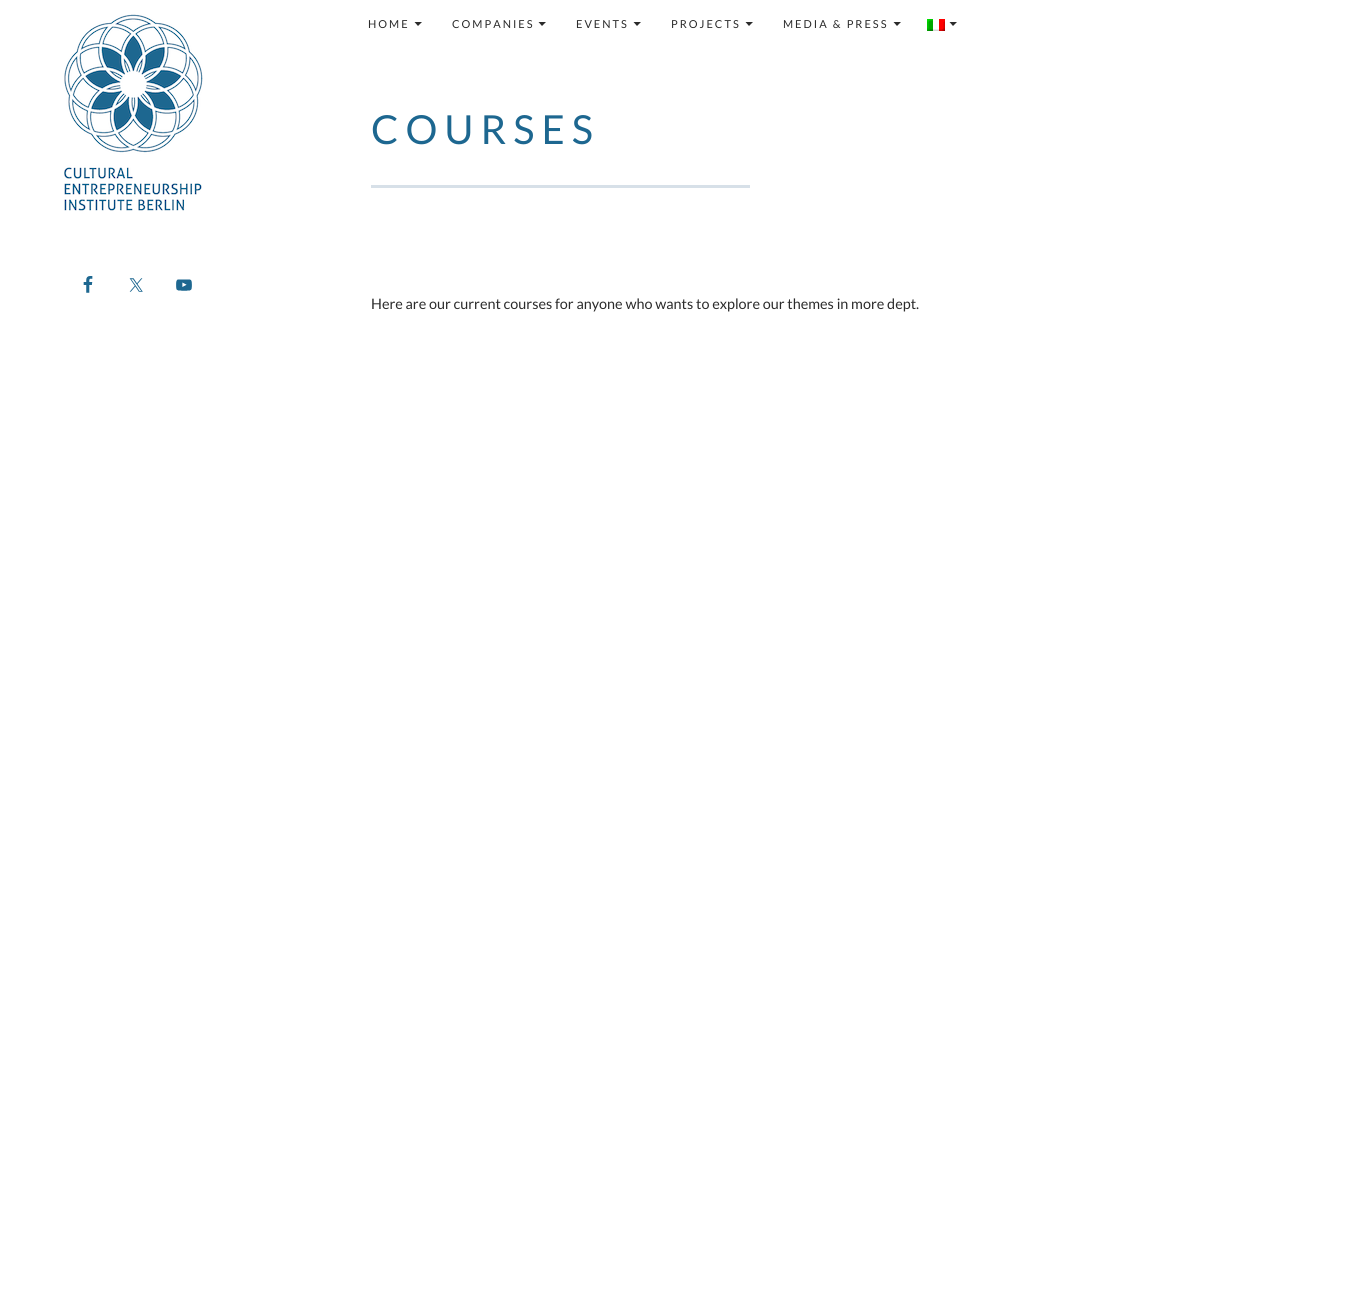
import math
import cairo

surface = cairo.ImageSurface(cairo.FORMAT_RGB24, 1368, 1310)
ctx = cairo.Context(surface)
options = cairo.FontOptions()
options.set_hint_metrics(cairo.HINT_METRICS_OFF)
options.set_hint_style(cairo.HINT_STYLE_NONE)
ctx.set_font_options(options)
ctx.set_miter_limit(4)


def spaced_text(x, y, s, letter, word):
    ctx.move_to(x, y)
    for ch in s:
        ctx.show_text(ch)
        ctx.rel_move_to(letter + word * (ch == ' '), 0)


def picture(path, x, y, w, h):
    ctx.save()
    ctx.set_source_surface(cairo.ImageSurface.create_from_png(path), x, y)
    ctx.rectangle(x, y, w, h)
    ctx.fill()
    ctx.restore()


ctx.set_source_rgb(1, 1, 1)
ctx.paint()
ctx.select_font_face("Lato")
ctx.set_font_size(11)
ctx.set_source_rgb(0.169, 0.169, 0.169)
spaced_text(368, 28, "HOME", 2, 0)
ctx.new_path()
ctx.move_to(414.5, 22)
ctx.line_to(418, 26)
ctx.line_to(422, 22)
ctx.close_path()
ctx.fill()
spaced_text(452, 28, "COMPANIES", 2, 0)
ctx.new_path()
ctx.move_to(538.5, 22)
ctx.line_to(542, 26)
ctx.line_to(546, 22)
ctx.close_path()
ctx.fill()
spaced_text(576, 28, "EVENTS", 2, 0)
ctx.new_path()
ctx.move_to(633.5, 22)
ctx.line_to(637, 26)
ctx.line_to(641, 22)
ctx.close_path()
ctx.fill()
spaced_text(671, 28, "PROJECTS", 2, 0)
ctx.new_path()
ctx.move_to(745.5, 22)
ctx.line_to(749, 26)
ctx.line_to(753, 22)
ctx.close_path()
ctx.fill()
spaced_text(783, 28, "MEDIA & PRESS", 2, 0)
ctx.new_path()
ctx.move_to(893.5, 22)
ctx.line_to(897, 26)
ctx.line_to(901, 22)
ctx.close_path()
ctx.fill()
picture("img1.png", 927, 19, 18, 12)
ctx.new_path()
ctx.move_to(949.5, 22)
ctx.line_to(953, 26)
ctx.line_to(957, 22)
ctx.close_path()
ctx.fill()
picture("img2.png", 64, 14, 139, 197)
picture("img3.png", 83, 276, 10, 17)
picture("img4.png", 129, 278, 14, 14)
picture("img5.png", 176, 279, 16, 12)
ctx.set_font_size(40)
ctx.set_source_rgb(0.114, 0.404, 0.565)
spaced_text(371, 144, "COURSES", 7, 0)
ctx.set_source_rgb(0.843, 0.878, 0.91)
ctx.rectangle(371, 185, 379, 3)
ctx.fill()
ctx.set_font_size(14.4)
ctx.set_source_rgb(0.169, 0.169, 0.169)
ctx.move_to(371, 309)
ctx.show_text("Here are our current courses for anyone who wants to explore our themes in more dept.")
surface.write_to_png("page.png")
